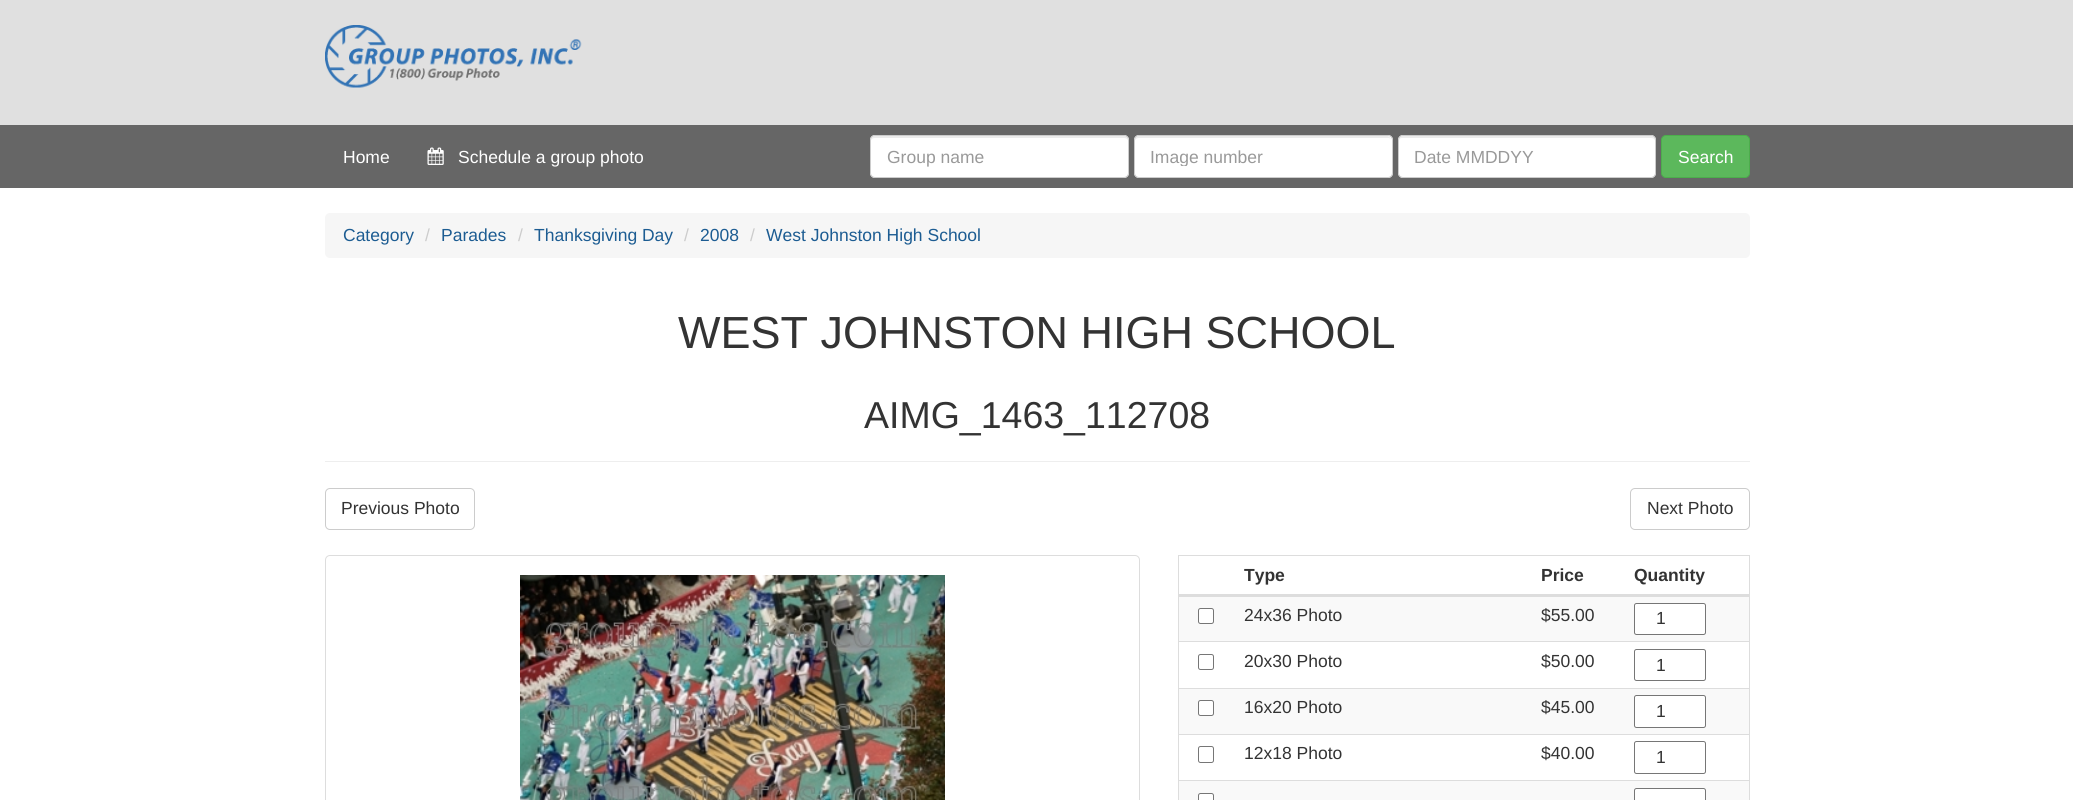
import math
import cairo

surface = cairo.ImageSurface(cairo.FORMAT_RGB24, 2073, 800)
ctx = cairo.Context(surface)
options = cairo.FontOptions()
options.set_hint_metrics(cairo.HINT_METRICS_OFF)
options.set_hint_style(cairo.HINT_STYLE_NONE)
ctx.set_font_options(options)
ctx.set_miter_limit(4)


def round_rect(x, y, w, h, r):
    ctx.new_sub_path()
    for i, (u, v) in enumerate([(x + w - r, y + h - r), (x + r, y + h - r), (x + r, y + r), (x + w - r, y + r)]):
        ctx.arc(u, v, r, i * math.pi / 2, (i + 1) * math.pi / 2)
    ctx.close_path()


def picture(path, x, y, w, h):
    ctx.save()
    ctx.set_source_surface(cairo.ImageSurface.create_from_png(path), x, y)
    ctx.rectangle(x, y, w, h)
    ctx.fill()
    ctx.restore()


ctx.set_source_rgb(1, 1, 1)
ctx.paint()
ctx.set_source_rgb(0.4, 0.4, 0.4)
ctx.rectangle(0, 125, 2073, 63)
ctx.fill()
ctx.set_source_rgb(0.878, 0.878, 0.878)
ctx.rectangle(0, 0, 2073, 125)
ctx.fill()
picture("img1.png", 325, 25, 257, 63)
ctx.select_font_face("Liberation Sans")
ctx.set_font_size(17.5)
ctx.set_source_rgb(1, 1, 1)
ctx.move_to(343, 163)
ctx.show_text("Home")
picture("img2.png", 427, 147, 17, 18)
ctx.move_to(458, 163)
ctx.show_text("Schedule a group photo")
round_rect(870, 135, 259, 43, 5)
ctx.fill()
ctx.set_source_rgb(0.925, 0.925, 0.925)
ctx.new_path()
ctx.move_to(875, 138)
ctx.line_to(1124, 138)
ctx.curve_to(1126, 138, 1128, 139, 1128, 141)
ctx.line_to(1128, 140)
ctx.curve_to(1128, 138, 1126, 136, 1124, 136)
ctx.line_to(875, 136)
ctx.curve_to(873, 136, 871, 138, 871, 140)
ctx.line_to(871, 141)
ctx.curve_to(871, 139, 873, 138, 875, 138)
ctx.close_path()
ctx.fill()
round_rect(870.5, 135.5, 258, 42, 4.5)
ctx.set_source_rgb(0.8, 0.8, 0.8)
ctx.set_line_width(1)
ctx.stroke()
ctx.set_source_rgb(0.6, 0.6, 0.6)
ctx.move_to(887, 163)
ctx.show_text("Group name")
ctx.set_source_rgb(1, 1, 1)
round_rect(1134, 135, 259, 43, 5)
ctx.fill()
ctx.set_source_rgb(0.925, 0.925, 0.925)
ctx.new_path()
ctx.move_to(1139, 138)
ctx.line_to(1389, 138)
ctx.line_to(1391, 139)
ctx.line_to(1391, 141)
ctx.line_to(1391, 140)
ctx.curve_to(1391, 138, 1389, 136, 1387, 136)
ctx.line_to(1139, 136)
ctx.curve_to(1137, 136, 1135, 138, 1135, 140)
ctx.line_to(1135, 141)
ctx.curve_to(1135, 139, 1137, 138, 1139, 138)
ctx.close_path()
ctx.fill()
round_rect(1134.5, 135.5, 258, 42, 4.5)
ctx.set_source_rgb(0.8, 0.8, 0.8)
ctx.stroke()
ctx.save()
ctx.rectangle(1150, 146, 221, 20)
ctx.clip()
ctx.set_source_rgb(0.6, 0.6, 0.6)
ctx.move_to(1150, 163)
ctx.show_text("Image number")
ctx.restore()
ctx.set_source_rgb(1, 1, 1)
round_rect(1398, 135, 258, 43, 5)
ctx.fill()
ctx.set_source_rgb(0.925, 0.925, 0.925)
ctx.new_path()
ctx.move_to(1402, 138)
ctx.line_to(1651, 138)
ctx.curve_to(1653, 138, 1655, 139, 1655, 141)
ctx.line_to(1655, 140)
ctx.curve_to(1655, 138, 1653, 136, 1651, 136)
ctx.line_to(1403, 136)
ctx.curve_to(1401, 136, 1399, 138, 1399, 140)
ctx.line_to(1399, 141)
ctx.curve_to(1399, 139, 1400, 138, 1402, 138)
ctx.close_path()
ctx.fill()
round_rect(1398.5, 135.5, 257, 42, 4.5)
ctx.set_source_rgb(0.8, 0.8, 0.8)
ctx.stroke()
ctx.set_source_rgb(0.6, 0.6, 0.6)
ctx.move_to(1414, 163)
ctx.show_text("Date MMDDYY")
ctx.set_source_rgb(0.361, 0.722, 0.361)
round_rect(1661.5, 135.5, 88, 42, 4.5)
ctx.fill_preserve()
ctx.set_source_rgb(0.298, 0.682, 0.298)
ctx.stroke()
ctx.set_source_rgb(1, 1, 1)
ctx.move_to(1678, 163)
ctx.show_text("Search")
ctx.set_source_rgb(0.961, 0.961, 0.961)
round_rect(325, 213, 1425, 45, 5)
ctx.fill()
ctx.set_source_rgb(0.11, 0.361, 0.573)
ctx.move_to(343, 241)
ctx.show_text("Category")
ctx.set_source_rgb(0.8, 0.8, 0.8)
ctx.move_to(425, 241)
ctx.show_text("/")
ctx.set_source_rgb(0.11, 0.361, 0.573)
ctx.move_to(441, 241)
ctx.show_text("Parades")
ctx.set_source_rgb(0.8, 0.8, 0.8)
ctx.move_to(518, 241)
ctx.show_text("/")
ctx.set_source_rgb(0.11, 0.361, 0.573)
ctx.move_to(534, 241)
ctx.show_text("Thanksgiving Day")
ctx.set_source_rgb(0.8, 0.8, 0.8)
ctx.move_to(684, 241)
ctx.show_text("/")
ctx.set_source_rgb(0.11, 0.361, 0.573)
ctx.move_to(700, 241)
ctx.show_text("2008")
ctx.set_source_rgb(0.8, 0.8, 0.8)
ctx.move_to(750, 241)
ctx.show_text("/")
ctx.set_source_rgb(0.11, 0.361, 0.573)
ctx.move_to(766, 241)
ctx.show_text("West Johnston High School")
ctx.set_font_size(45)
ctx.set_source_rgb(0.2, 0.2, 0.2)
ctx.move_to(678, 348)
ctx.show_text("WEST JOHNSTON HIGH SCHOOL")
ctx.set_font_size(37.5)
ctx.move_to(864, 428)
ctx.show_text("AIMG_1463_112708")
ctx.set_source_rgb(0.933, 0.933, 0.933)
ctx.rectangle(325, 461, 1425, 1)
ctx.fill()
round_rect(325.5, 488.5, 149, 41, 4.5)
ctx.set_source_rgb(0.8, 0.8, 0.8)
ctx.stroke()
ctx.set_font_size(17.5)
ctx.set_source_rgb(0.2, 0.2, 0.2)
ctx.move_to(341, 514)
ctx.show_text("Previous Photo")
round_rect(1630.5, 488.5, 119, 41, 4.5)
ctx.set_source_rgb(0.8, 0.8, 0.8)
ctx.stroke()
ctx.set_source_rgb(0.2, 0.2, 0.2)
ctx.move_to(1647, 514)
ctx.show_text("Next Photo")
round_rect(325.5, 555.5, 814, 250, 4.5)
ctx.set_source_rgb(0.867, 0.867, 0.867)
ctx.stroke()
picture("img3.png", 520, 575, 425, 225)
ctx.rectangle(1178, 555, 572, 1)
ctx.fill()
ctx.rectangle(1749, 555, 1, 245)
ctx.fill()
ctx.rectangle(1178, 555, 1, 245)
ctx.fill()
ctx.select_font_face("Liberation Sans", cairo.FONT_SLANT_NORMAL, cairo.FONT_WEIGHT_BOLD)
ctx.set_source_rgb(0.2, 0.2, 0.2)
ctx.move_to(1244, 581)
ctx.show_text("Type")
ctx.move_to(1541, 581)
ctx.show_text("Price")
ctx.set_source_rgb(0.867, 0.867, 0.867)
ctx.rectangle(1178, 594, 572, 3)
ctx.fill()
ctx.set_source_rgb(0.2, 0.2, 0.2)
ctx.move_to(1634, 581)
ctx.show_text("Quantity")
ctx.set_source_rgb(0.976, 0.976, 0.976)
ctx.rectangle(1179, 597, 570, 44)
ctx.fill()
ctx.set_source_rgb(1, 1, 1)
round_rect(1198.5, 608.5, 15, 15, 2)
ctx.fill_preserve()
ctx.set_source_rgb(0.463, 0.463, 0.463)
ctx.stroke()
ctx.select_font_face("Liberation Sans")
ctx.set_source_rgb(0.2, 0.2, 0.2)
ctx.move_to(1244, 621)
ctx.show_text("24x36 Photo")
ctx.move_to(1541, 621)
ctx.show_text("$55.00")
ctx.set_source_rgb(1, 1, 1)
round_rect(1634.5, 603.5, 71, 31, 2)
ctx.fill_preserve()
ctx.set_source_rgb(0.463, 0.463, 0.463)
ctx.stroke()
ctx.set_source_rgb(0.2, 0.2, 0.2)
ctx.move_to(1656, 624)
ctx.show_text("1")
round_rect(1198.5, 654.5, 15, 15, 2)
ctx.set_source_rgb(0.463, 0.463, 0.463)
ctx.stroke()
ctx.set_source_rgb(0.2, 0.2, 0.2)
ctx.move_to(1244, 667)
ctx.show_text("20x30 Photo")
ctx.move_to(1541, 667)
ctx.show_text("$50.00")
ctx.set_source_rgb(0.867, 0.867, 0.867)
ctx.rectangle(1178, 641, 572, 1)
ctx.fill()
round_rect(1634.5, 649.5, 71, 31, 2)
ctx.set_source_rgb(0.463, 0.463, 0.463)
ctx.stroke()
ctx.set_source_rgb(0.2, 0.2, 0.2)
ctx.move_to(1656, 671)
ctx.show_text("1")
ctx.set_source_rgb(0.976, 0.976, 0.976)
ctx.rectangle(1179, 689, 570, 45)
ctx.fill()
ctx.set_source_rgb(1, 1, 1)
round_rect(1198.5, 700.5, 15, 15, 2)
ctx.fill_preserve()
ctx.set_source_rgb(0.463, 0.463, 0.463)
ctx.stroke()
ctx.set_source_rgb(0.2, 0.2, 0.2)
ctx.move_to(1244, 713)
ctx.show_text("16x20 Photo")
ctx.move_to(1541, 713)
ctx.show_text("$45.00")
ctx.set_source_rgb(0.867, 0.867, 0.867)
ctx.rectangle(1178, 688, 572, 1)
ctx.fill()
ctx.set_source_rgb(1, 1, 1)
round_rect(1634.5, 695.5, 71, 32, 2)
ctx.fill_preserve()
ctx.set_source_rgb(0.463, 0.463, 0.463)
ctx.stroke()
ctx.set_source_rgb(0.2, 0.2, 0.2)
ctx.move_to(1656, 717)
ctx.show_text("1")
round_rect(1198.5, 746.5, 15, 16, 2)
ctx.set_source_rgb(0.463, 0.463, 0.463)
ctx.stroke()
ctx.set_source_rgb(0.2, 0.2, 0.2)
ctx.move_to(1244, 759)
ctx.show_text("12x18 Photo")
ctx.move_to(1541, 759)
ctx.show_text("$40.00")
ctx.set_source_rgb(0.867, 0.867, 0.867)
ctx.rectangle(1178, 734, 572, 1)
ctx.fill()
round_rect(1634.5, 741.5, 71, 32, 2)
ctx.set_source_rgb(0.463, 0.463, 0.463)
ctx.stroke()
ctx.set_source_rgb(0.2, 0.2, 0.2)
ctx.move_to(1656, 763)
ctx.show_text("1")
ctx.set_source_rgb(0.976, 0.976, 0.976)
ctx.rectangle(1179, 781, 570, 19)
ctx.fill()
ctx.set_source_rgb(0.867, 0.867, 0.867)
ctx.rectangle(1178, 780, 572, 1)
ctx.fill()
ctx.set_source_rgb(1, 1, 1)
round_rect(1634.5, 788.5, 71, 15, 2)
ctx.fill_preserve()
ctx.set_source_rgb(0.463, 0.463, 0.463)
ctx.stroke()
ctx.set_source_rgb(1, 1, 1)
round_rect(1198.5, 793.5, 15, 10, 2)
ctx.fill_preserve()
ctx.set_source_rgb(0.463, 0.463, 0.463)
ctx.stroke()
surface.write_to_png("page.png")
